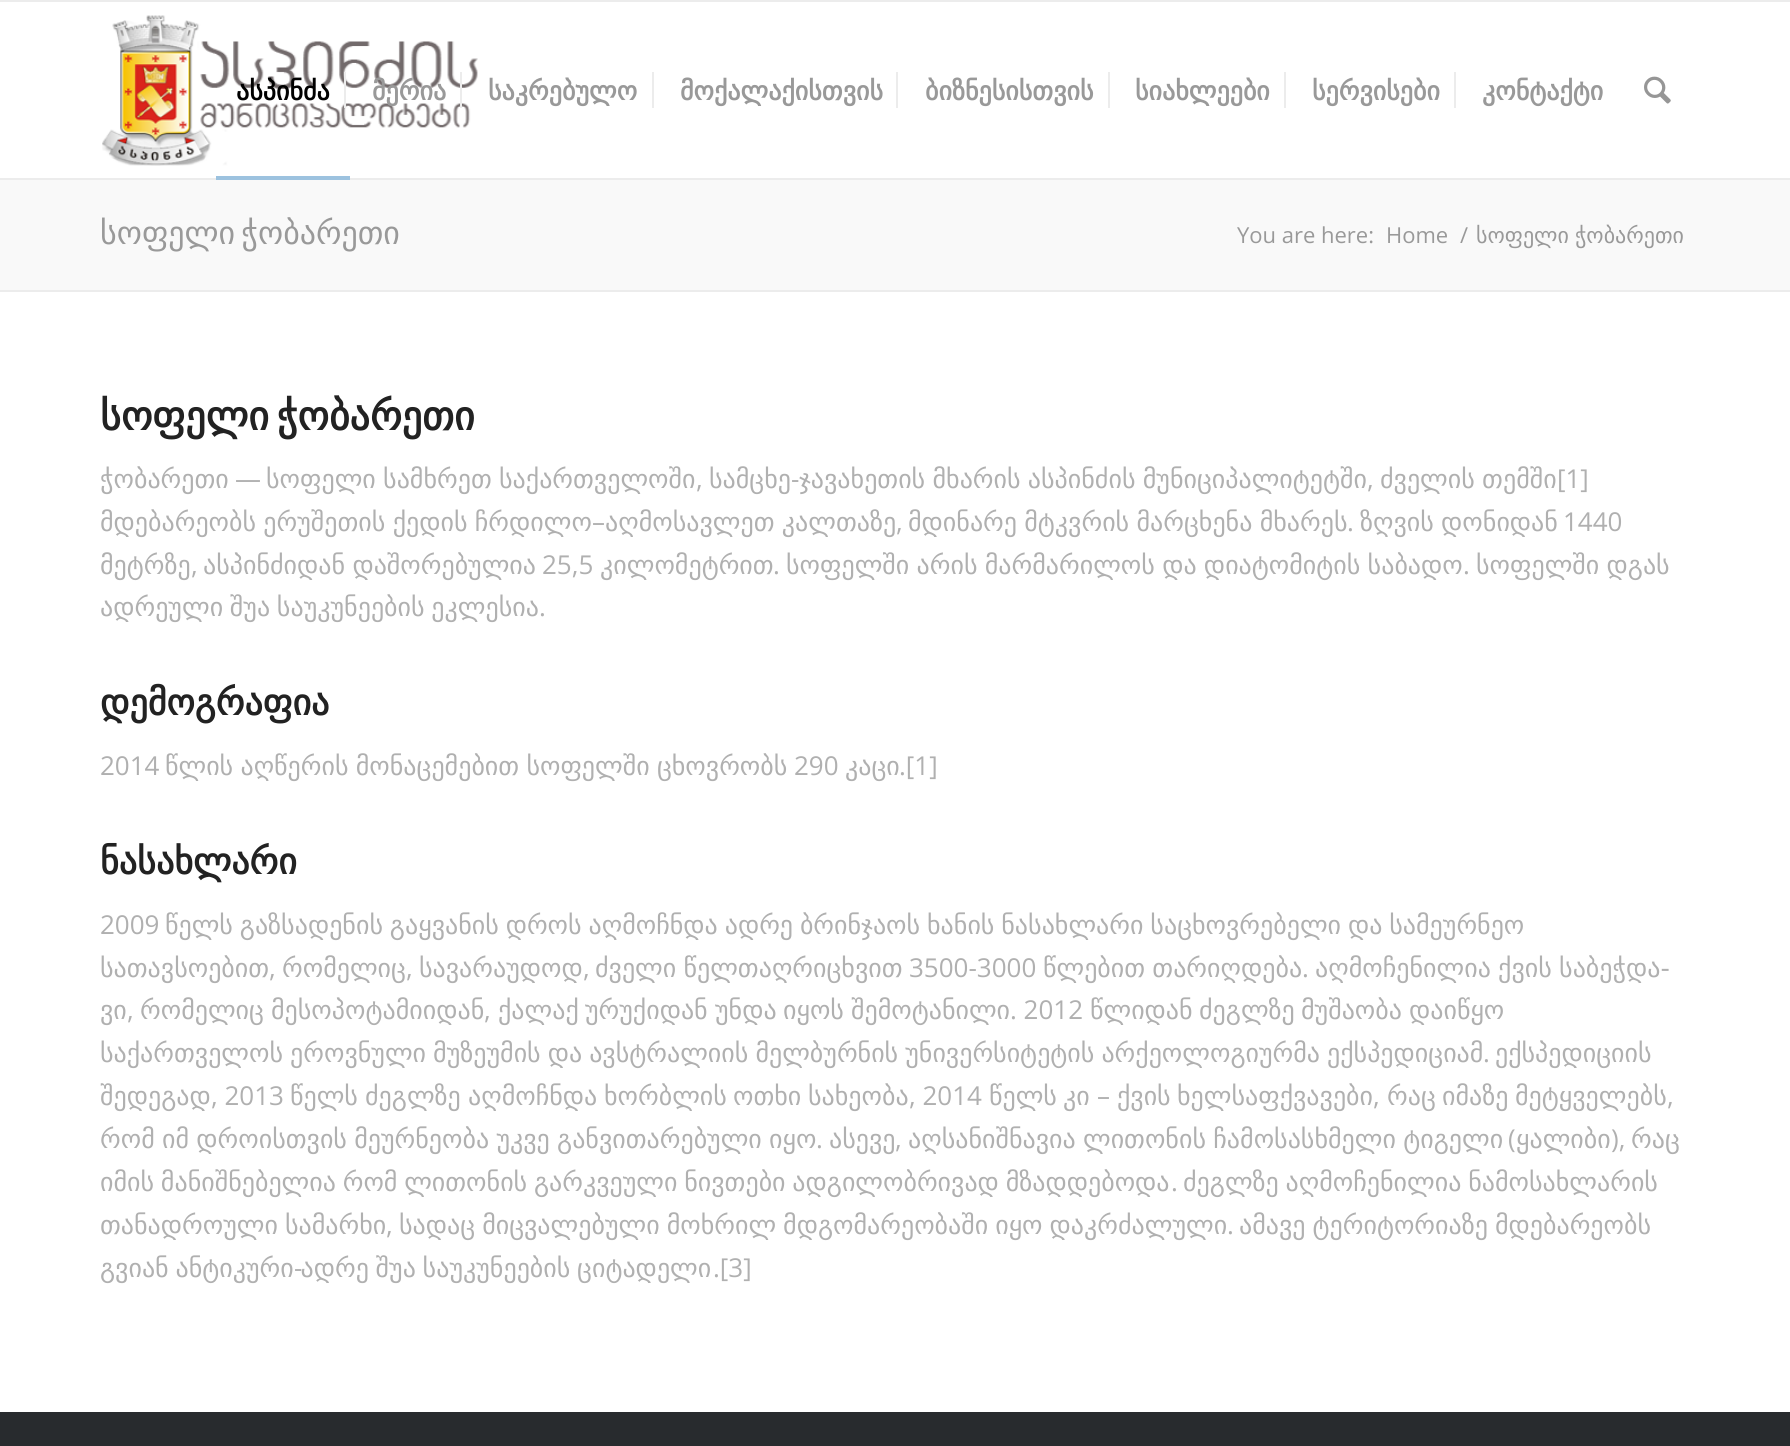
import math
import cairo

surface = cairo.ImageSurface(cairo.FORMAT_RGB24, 1790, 1446)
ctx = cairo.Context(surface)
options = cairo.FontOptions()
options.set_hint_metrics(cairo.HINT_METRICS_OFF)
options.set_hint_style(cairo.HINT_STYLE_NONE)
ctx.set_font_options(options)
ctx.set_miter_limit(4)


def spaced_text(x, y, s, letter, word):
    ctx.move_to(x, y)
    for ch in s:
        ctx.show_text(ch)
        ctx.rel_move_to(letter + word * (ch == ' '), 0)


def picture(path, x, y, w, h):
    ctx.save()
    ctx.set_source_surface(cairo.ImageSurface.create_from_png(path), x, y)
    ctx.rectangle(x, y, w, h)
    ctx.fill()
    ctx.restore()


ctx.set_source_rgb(0.157, 0.169, 0.18)
ctx.paint()
ctx.set_source_rgb(1, 1, 1)
ctx.rectangle(0, 2, 1790, 176)
ctx.fill()
ctx.set_source_rgb(0.922, 0.922, 0.922)
ctx.rectangle(0, 0, 1790, 2)
ctx.fill()
ctx.rectangle(0, 178, 1790, 2)
ctx.fill()
picture("img1.png", 102, 15, 376, 151)
ctx.select_font_face("DejaVu Sans", cairo.FONT_SLANT_NORMAL, cairo.FONT_WEIGHT_BOLD)
ctx.set_font_size(26)
ctx.set_source_rgb(0, 0, 0)
ctx.move_to(236, 100)
ctx.show_text("ასპინძა")
ctx.set_source_rgb(0.612, 0.761, 0.875)
ctx.rectangle(216, 176, 134, 4)
ctx.fill()
ctx.set_source_rgb(0.6, 0.6, 0.6)
ctx.move_to(372, 100)
ctx.show_text("მერია")
ctx.set_source_rgb(0.922, 0.922, 0.922)
ctx.rectangle(344, 72, 2, 36)
ctx.fill()
ctx.set_source_rgb(0.6, 0.6, 0.6)
ctx.move_to(488, 100)
ctx.show_text("საკრებულო")
ctx.set_source_rgb(0.922, 0.922, 0.922)
ctx.rectangle(460, 72, 2, 36)
ctx.fill()
ctx.set_source_rgb(0.6, 0.6, 0.6)
ctx.move_to(680, 100)
ctx.show_text("მოქალაქისთვის")
ctx.set_source_rgb(0.922, 0.922, 0.922)
ctx.rectangle(652, 72, 2, 36)
ctx.fill()
ctx.set_source_rgb(0.6, 0.6, 0.6)
ctx.move_to(925, 100)
ctx.show_text("ბიზნესისთვის")
ctx.set_source_rgb(0.922, 0.922, 0.922)
ctx.rectangle(896, 72, 2, 36)
ctx.fill()
ctx.set_source_rgb(0.6, 0.6, 0.6)
ctx.move_to(1135, 100)
ctx.show_text("სიახლეები")
ctx.set_source_rgb(0.922, 0.922, 0.922)
ctx.rectangle(1108, 72, 2, 36)
ctx.fill()
ctx.set_source_rgb(0.6, 0.6, 0.6)
ctx.move_to(1312, 100)
ctx.show_text("სერვისები")
ctx.set_source_rgb(0.922, 0.922, 0.922)
ctx.rectangle(1284, 72, 2, 36)
ctx.fill()
ctx.set_source_rgb(0.6, 0.6, 0.6)
ctx.move_to(1482, 100)
ctx.show_text("კონტაქტი")
ctx.set_source_rgb(0.922, 0.922, 0.922)
ctx.rectangle(1454, 72, 2, 36)
ctx.fill()
picture("img2.png", 1644, 76, 27, 28)
ctx.set_source_rgb(1, 1, 1)
ctx.rectangle(0, 292, 1790, 1120)
ctx.fill()
ctx.set_source_rgb(0.973, 0.973, 0.973)
ctx.rectangle(0, 180, 1790, 110)
ctx.fill()
ctx.select_font_face("DejaVu Sans")
ctx.set_font_size(32)
ctx.set_source_rgb(0.6, 0.6, 0.6)
spaced_text(100, 244, "სოფელი ჭობარეთი", 0, -4)
ctx.select_font_face("Open Sans")
ctx.set_font_size(22)
ctx.move_to(1237, 243)
ctx.show_text("You are here:")
ctx.move_to(1386, 243)
ctx.show_text("Home")
ctx.move_to(1460, 243)
ctx.show_text("/")
ctx.select_font_face("DejaVu Sans")
spaced_text(1476, 243, "სოფელი ჭობარეთი", 0, -1)
ctx.set_source_rgb(0.922, 0.922, 0.922)
ctx.rectangle(0, 290, 1790, 2)
ctx.fill()
ctx.select_font_face("DejaVu Sans", cairo.FONT_SLANT_NORMAL, cairo.FONT_WEIGHT_BOLD)
ctx.set_font_size(40)
ctx.set_source_rgb(0.133, 0.133, 0.133)
spaced_text(100, 430, "სოფელი ჭობარეთი", 0, -5)
ctx.select_font_face("DejaVu Sans")
ctx.set_font_size(26)
ctx.set_source_rgb(0.69, 0.69, 0.69)
ctx.move_to(100, 488)
ctx.show_text("ჭობარეთი")
ctx.select_font_face("Open Sans")
ctx.move_to(235, 488)
ctx.show_text("—")
ctx.select_font_face("DejaVu Sans")
spaced_text(266, 488, "სოფელი სამხრეთ საქართველოში", 0, -1)
ctx.move_to(709, 488)
ctx.show_text("სამცხე")
ctx.select_font_face("Open Sans")
ctx.move_to(791, 488)
ctx.show_text("-")
ctx.select_font_face("DejaVu Sans")
spaced_text(799, 488, "ჯავახეთის მხარის ასპინძის მუნიციპალიტეტში", 0, -1)
spaced_text(1380, 488, "ძველის თემში", 0, -1)
ctx.select_font_face("Open Sans")
ctx.move_to(1557, 488)
ctx.show_text("[1]")
ctx.move_to(696, 488)
ctx.show_text(",")
ctx.move_to(1367, 488)
ctx.show_text(",")
ctx.select_font_face("DejaVu Sans")
spaced_text(100, 531, "მდებარეობს ერუშეთის ქედის ჩრდილო", 0, -1)
ctx.select_font_face("Open Sans")
ctx.move_to(592, 531)
ctx.show_text("–")
ctx.select_font_face("DejaVu Sans")
spaced_text(605, 531, "აღმოსავლეთ კალთაზე", 0, -1)
spaced_text(908, 531, "მდინარე მტკვრის მარცხენა მხარეს", 0, -1)
spaced_text(1360, 531, "ზღვის დონიდან", 0, -1)
ctx.select_font_face("Open Sans")
ctx.move_to(1563, 531)
ctx.show_text("1440")
ctx.move_to(896, 531)
ctx.show_text(",")
ctx.move_to(1347, 531)
ctx.show_text(".")
ctx.select_font_face("DejaVu Sans")
ctx.move_to(100, 574)
ctx.show_text("მეტრზე")
ctx.select_font_face("Open Sans")
ctx.move_to(191, 574)
ctx.show_text(",")
ctx.select_font_face("DejaVu Sans")
spaced_text(203, 574, "ასპინძიდან დაშორებულია", 0, -1)
ctx.select_font_face("Open Sans")
ctx.move_to(542, 574)
ctx.show_text("25,5")
ctx.select_font_face("DejaVu Sans")
ctx.move_to(600, 574)
ctx.show_text("კილომეტრით")
ctx.select_font_face("Open Sans")
ctx.move_to(773, 574)
ctx.show_text(".")
ctx.select_font_face("DejaVu Sans")
spaced_text(786, 574, "სოფელში არის მარმარილოს და დიატომიტის საბადო", 0, -1)
ctx.select_font_face("Open Sans")
ctx.move_to(1463, 574)
ctx.show_text(".")
ctx.select_font_face("DejaVu Sans")
spaced_text(1476, 574, "სოფელში დგას", 0, -1)
spaced_text(100, 616, "ადრეული შუა საუკუნეების ეკლესია", 0, -1.5)
ctx.select_font_face("Open Sans")
ctx.move_to(539, 616)
ctx.show_text(".")
ctx.select_font_face("DejaVu Sans", cairo.FONT_SLANT_NORMAL, cairo.FONT_WEIGHT_BOLD)
ctx.set_font_size(36)
ctx.set_source_rgb(0.133, 0.133, 0.133)
ctx.move_to(100, 715)
ctx.show_text("დემოგრაფია")
ctx.select_font_face("Open Sans")
ctx.set_font_size(26)
ctx.set_source_rgb(0.69, 0.69, 0.69)
ctx.move_to(100, 775)
ctx.show_text("2014")
ctx.select_font_face("DejaVu Sans")
spaced_text(165, 775, "წლის აღწერის მონაცემებით სოფელში ცხოვრობს", 0, -1)
ctx.select_font_face("Open Sans")
ctx.move_to(794, 775)
ctx.show_text("290")
ctx.select_font_face("DejaVu Sans")
ctx.move_to(845, 775)
ctx.show_text("კაცი")
ctx.select_font_face("Open Sans")
ctx.move_to(899, 775)
ctx.show_text(".[1]")
ctx.select_font_face("DejaVu Sans", cairo.FONT_SLANT_NORMAL, cairo.FONT_WEIGHT_BOLD)
ctx.set_font_size(36)
ctx.set_source_rgb(0.133, 0.133, 0.133)
ctx.move_to(100, 874)
ctx.show_text("ნასახლარი")
ctx.select_font_face("Open Sans")
ctx.set_font_size(26)
ctx.set_source_rgb(0.69, 0.69, 0.69)
ctx.move_to(100, 934)
ctx.show_text("2009")
ctx.select_font_face("DejaVu Sans")
spaced_text(165, 934, "წელს გაზსადენის გაყვანის დროს აღმოჩნდა ადრე ბრინჯაოს ხანის ნასახლარი საცხოვრებელი და სამეურნეო", 0, -1.4)
ctx.move_to(100, 977)
ctx.show_text("სათავსოებით")
ctx.select_font_face("Open Sans")
ctx.move_to(269, 977)
ctx.show_text(",")
ctx.select_font_face("DejaVu Sans")
ctx.move_to(282, 977)
ctx.show_text("რომელიც")
ctx.select_font_face("Open Sans")
ctx.move_to(406, 977)
ctx.show_text(",")
ctx.select_font_face("DejaVu Sans")
ctx.move_to(419, 977)
ctx.show_text("სავარაუდოდ")
ctx.select_font_face("Open Sans")
ctx.move_to(583, 977)
ctx.show_text(",")
ctx.select_font_face("DejaVu Sans")
spaced_text(595, 977, "ძველი წელთაღრიცხვით", 0, -1)
ctx.select_font_face("Open Sans")
ctx.move_to(909, 977)
ctx.show_text("3500-3000")
ctx.select_font_face("DejaVu Sans")
spaced_text(1043, 977, "წლებით თარიღდება", 0, -1)
ctx.select_font_face("Open Sans")
ctx.move_to(1302, 977)
ctx.show_text(".")
ctx.select_font_face("DejaVu Sans")
spaced_text(1315, 977, "აღმოჩენილია ქვის საბეჭდა-", 0, -1)
ctx.move_to(100, 1019)
ctx.show_text("ვი")
ctx.select_font_face("Open Sans")
ctx.move_to(127, 1019)
ctx.show_text(",")
ctx.select_font_face("DejaVu Sans")
ctx.move_to(140, 1019)
ctx.show_text("რომელიც")
ctx.move_to(271, 1019)
ctx.show_text("მესოპოტამიიდან")
ctx.select_font_face("Open Sans")
ctx.move_to(484, 1019)
ctx.show_text(",")
ctx.select_font_face("DejaVu Sans")
ctx.move_to(498, 1019)
ctx.show_text("ქალაქ")
ctx.move_to(585, 1019)
ctx.show_text("ურუქიდან")
ctx.move_to(715, 1019)
ctx.show_text("უნდა")
ctx.move_to(783, 1019)
ctx.show_text("იყოს")
ctx.move_to(851, 1019)
ctx.show_text("შემოტანილი")
ctx.select_font_face("Open Sans")
ctx.move_to(1010, 1019)
ctx.show_text(". 2012")
ctx.select_font_face("DejaVu Sans")
ctx.move_to(1090, 1019)
ctx.show_text("წლიდან")
ctx.move_to(1199, 1019)
ctx.show_text("ძეგლზე")
ctx.move_to(1301, 1019)
ctx.show_text("მუშაობა")
ctx.move_to(1409, 1019)
ctx.show_text("დაიწყო")
spaced_text(100, 1062, "საქართველოს ეროვნული მუზეუმის და ავსტრალიის მელბურნის უნივერსიტეტის არქეოლოგიურმა ექსპედიციამ", 0, -1.25)
ctx.select_font_face("Open Sans")
ctx.move_to(1483, 1062)
ctx.show_text(".")
ctx.select_font_face("DejaVu Sans")
ctx.move_to(1495, 1062)
ctx.show_text("ექსპედიციის")
ctx.move_to(100, 1105)
ctx.show_text("შედეგად")
ctx.select_font_face("Open Sans")
ctx.move_to(211, 1105)
ctx.show_text(", 2013")
ctx.select_font_face("DejaVu Sans")
ctx.move_to(290, 1105)
ctx.show_text("წელს")
ctx.move_to(365, 1105)
ctx.show_text("ძეგლზე")
ctx.move_to(468, 1105)
ctx.show_text("აღმოჩნდა")
ctx.move_to(604, 1105)
ctx.show_text("ხორბლის")
ctx.move_to(733, 1105)
ctx.show_text("ოთხი")
ctx.move_to(808, 1105)
ctx.show_text("სახეობა")
ctx.select_font_face("Open Sans")
ctx.move_to(909, 1105)
ctx.show_text(", 2014")
ctx.select_font_face("DejaVu Sans")
ctx.move_to(989, 1105)
ctx.show_text("წელს")
ctx.move_to(1063, 1105)
ctx.show_text("კი")
ctx.select_font_face("Open Sans")
ctx.move_to(1097, 1105)
ctx.show_text("–")
ctx.select_font_face("DejaVu Sans")
ctx.move_to(1117, 1105)
ctx.show_text("ქვის")
ctx.move_to(1177, 1105)
ctx.show_text("ხელსაფქვავები")
ctx.move_to(1387, 1105)
ctx.show_text("რაც")
ctx.move_to(1442, 1105)
ctx.show_text("იმაზე")
ctx.move_to(1515, 1105)
ctx.show_text("მეტყველებს")
ctx.select_font_face("Open Sans")
ctx.move_to(1373, 1105)
ctx.show_text(",")
ctx.move_to(1667, 1105)
ctx.show_text(",")
ctx.select_font_face("DejaVu Sans")
spaced_text(100, 1148, "რომ იმ დროისთვის მეურნეობა უკვე განვითარებული იყო", 0, -1)
ctx.select_font_face("Open Sans")
ctx.move_to(816, 1148)
ctx.show_text(".")
ctx.select_font_face("DejaVu Sans")
ctx.move_to(829, 1148)
ctx.show_text("ასევე")
ctx.select_font_face("Open Sans")
ctx.move_to(895, 1148)
ctx.show_text(",")
ctx.select_font_face("DejaVu Sans")
spaced_text(908, 1148, "აღსანიშნავია ლითონის ჩამოსასხმელი ტიგელი", 0, -1)
ctx.select_font_face("Open Sans")
ctx.move_to(1508, 1148)
ctx.show_text("(")
ctx.select_font_face("DejaVu Sans")
ctx.move_to(1516, 1148)
ctx.show_text("ყალიბი")
ctx.select_font_face("Open Sans")
ctx.move_to(1611, 1148)
ctx.show_text("),")
ctx.select_font_face("DejaVu Sans")
ctx.move_to(1631, 1148)
ctx.show_text("რაც")
spaced_text(100, 1191, "იმის მანიშნებელია რომ ლითონის გარკვეული ნივთები ადგილობრივად მზადდებოდა", 0, -1.5)
ctx.select_font_face("Open Sans")
ctx.move_to(1171, 1191)
ctx.show_text(".")
ctx.select_font_face("DejaVu Sans")
spaced_text(1183, 1191, "ძეგლზე აღმოჩენილია ნამოსახლარის", 0, -1.5)
spaced_text(100, 1234, "თანადროული სამარხი", 0, -1.25)
ctx.select_font_face("Open Sans")
ctx.move_to(386, 1234)
ctx.show_text(",")
ctx.select_font_face("DejaVu Sans")
spaced_text(399, 1234, "სადაც მიცვალებული მოხრილ მდგომარეობაში იყო დაკრძალული", 0, -1.25)
ctx.select_font_face("Open Sans")
ctx.move_to(1227, 1234)
ctx.show_text(".")
ctx.select_font_face("DejaVu Sans")
spaced_text(1239, 1234, "ამავე ტერიტორიაზე მდებარეობს", 0, -1.25)
spaced_text(100, 1277, "გვიან ანტიკური ადრე შუა საუკუნეების ციტადელი", 0, -1.5)
ctx.select_font_face("Open Sans")
ctx.move_to(713, 1277)
ctx.show_text(".[3]")
ctx.move_to(294, 1277)
ctx.show_text("-")
surface.write_to_png("page.png")
